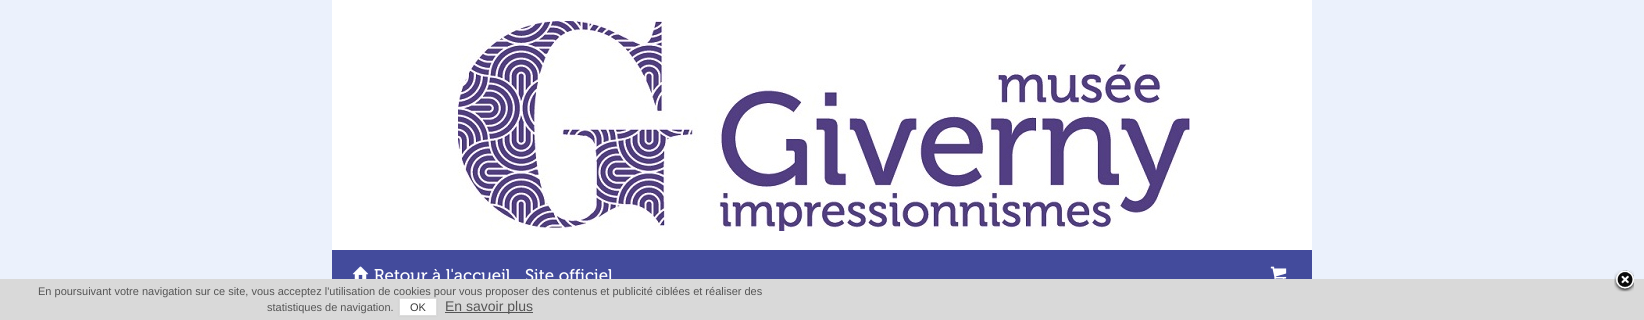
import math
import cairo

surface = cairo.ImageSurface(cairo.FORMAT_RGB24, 1644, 320)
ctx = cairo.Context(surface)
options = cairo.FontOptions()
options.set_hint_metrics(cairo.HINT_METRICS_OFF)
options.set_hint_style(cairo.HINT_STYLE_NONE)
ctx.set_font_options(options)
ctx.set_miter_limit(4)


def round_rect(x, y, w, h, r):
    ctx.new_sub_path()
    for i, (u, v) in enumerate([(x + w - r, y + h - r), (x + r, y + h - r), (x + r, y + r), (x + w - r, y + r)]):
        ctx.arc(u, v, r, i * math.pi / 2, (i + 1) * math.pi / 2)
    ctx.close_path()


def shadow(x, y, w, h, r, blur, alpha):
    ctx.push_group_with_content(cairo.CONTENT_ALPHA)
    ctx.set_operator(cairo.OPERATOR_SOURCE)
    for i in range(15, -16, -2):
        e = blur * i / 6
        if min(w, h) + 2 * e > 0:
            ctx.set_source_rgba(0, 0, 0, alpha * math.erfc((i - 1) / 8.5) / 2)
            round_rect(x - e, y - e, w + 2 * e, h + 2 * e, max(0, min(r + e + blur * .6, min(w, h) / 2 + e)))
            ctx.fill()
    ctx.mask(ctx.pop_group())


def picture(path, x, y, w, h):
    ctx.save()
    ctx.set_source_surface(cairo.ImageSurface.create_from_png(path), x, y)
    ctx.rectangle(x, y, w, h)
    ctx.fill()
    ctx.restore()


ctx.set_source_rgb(0.918, 0.945, 0.988)
ctx.paint()
ctx.set_source_rgb(1, 1, 1)
ctx.rectangle(332, 0, 980, 250)
ctx.fill()
picture("img1.png", 453, 17, 737, 214)
ctx.set_source_rgb(0.263, 0.294, 0.612)
ctx.rectangle(332, 250, 980, 29)
ctx.fill()
picture("img2.png", 352, 266, 17, 13)
ctx.select_font_face("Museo")
ctx.set_font_size(17)
ctx.set_source_rgb(1, 1, 1)
ctx.move_to(374, 281)
ctx.show_text("Retour à l'accueil")
ctx.move_to(525, 281)
ctx.show_text("Site officiel")
picture("img3.png", 1270, 266, 17, 13)
ctx.set_source_rgb(0.851, 0.851, 0.851)
ctx.rectangle(0, 279, 1644, 41)
ctx.fill()
picture("img4.png", 1614, 270, 20, 22)
ctx.select_font_face("Liberation Sans")
ctx.set_font_size(11)
ctx.set_source_rgb(0.333, 0.333, 0.333)
ctx.move_to(38, 295)
ctx.show_text("En poursuivant votre navigation sur ce site, vous acceptez l'utilisation de cookies pour vous proposer des contenus et publicité ciblées et réaliser des")
ctx.move_to(267, 311)
ctx.show_text("statistiques de navigation.")
ctx.set_source_rgb(0.8, 0.8, 0.8)
shadow(399, 298, 38, 18, 0, 1, 1)
ctx.set_source_rgb(1, 1, 1)
ctx.rectangle(399.5, 298.5, 37, 17)
ctx.fill_preserve()
ctx.set_source_rgb(0.867, 0.867, 0.867)
ctx.set_line_width(1)
ctx.stroke()
ctx.set_source_rgb(0.231, 0.231, 0.231)
ctx.move_to(410, 311)
ctx.show_text("OK")
ctx.set_source_rgb(0.333, 0.333, 0.333)
ctx.rectangle(445, 312, 88, 1)
ctx.fill()
ctx.set_font_size(14)
ctx.move_to(445, 311)
ctx.show_text("En savoir plus")
surface.write_to_png("page.png")
